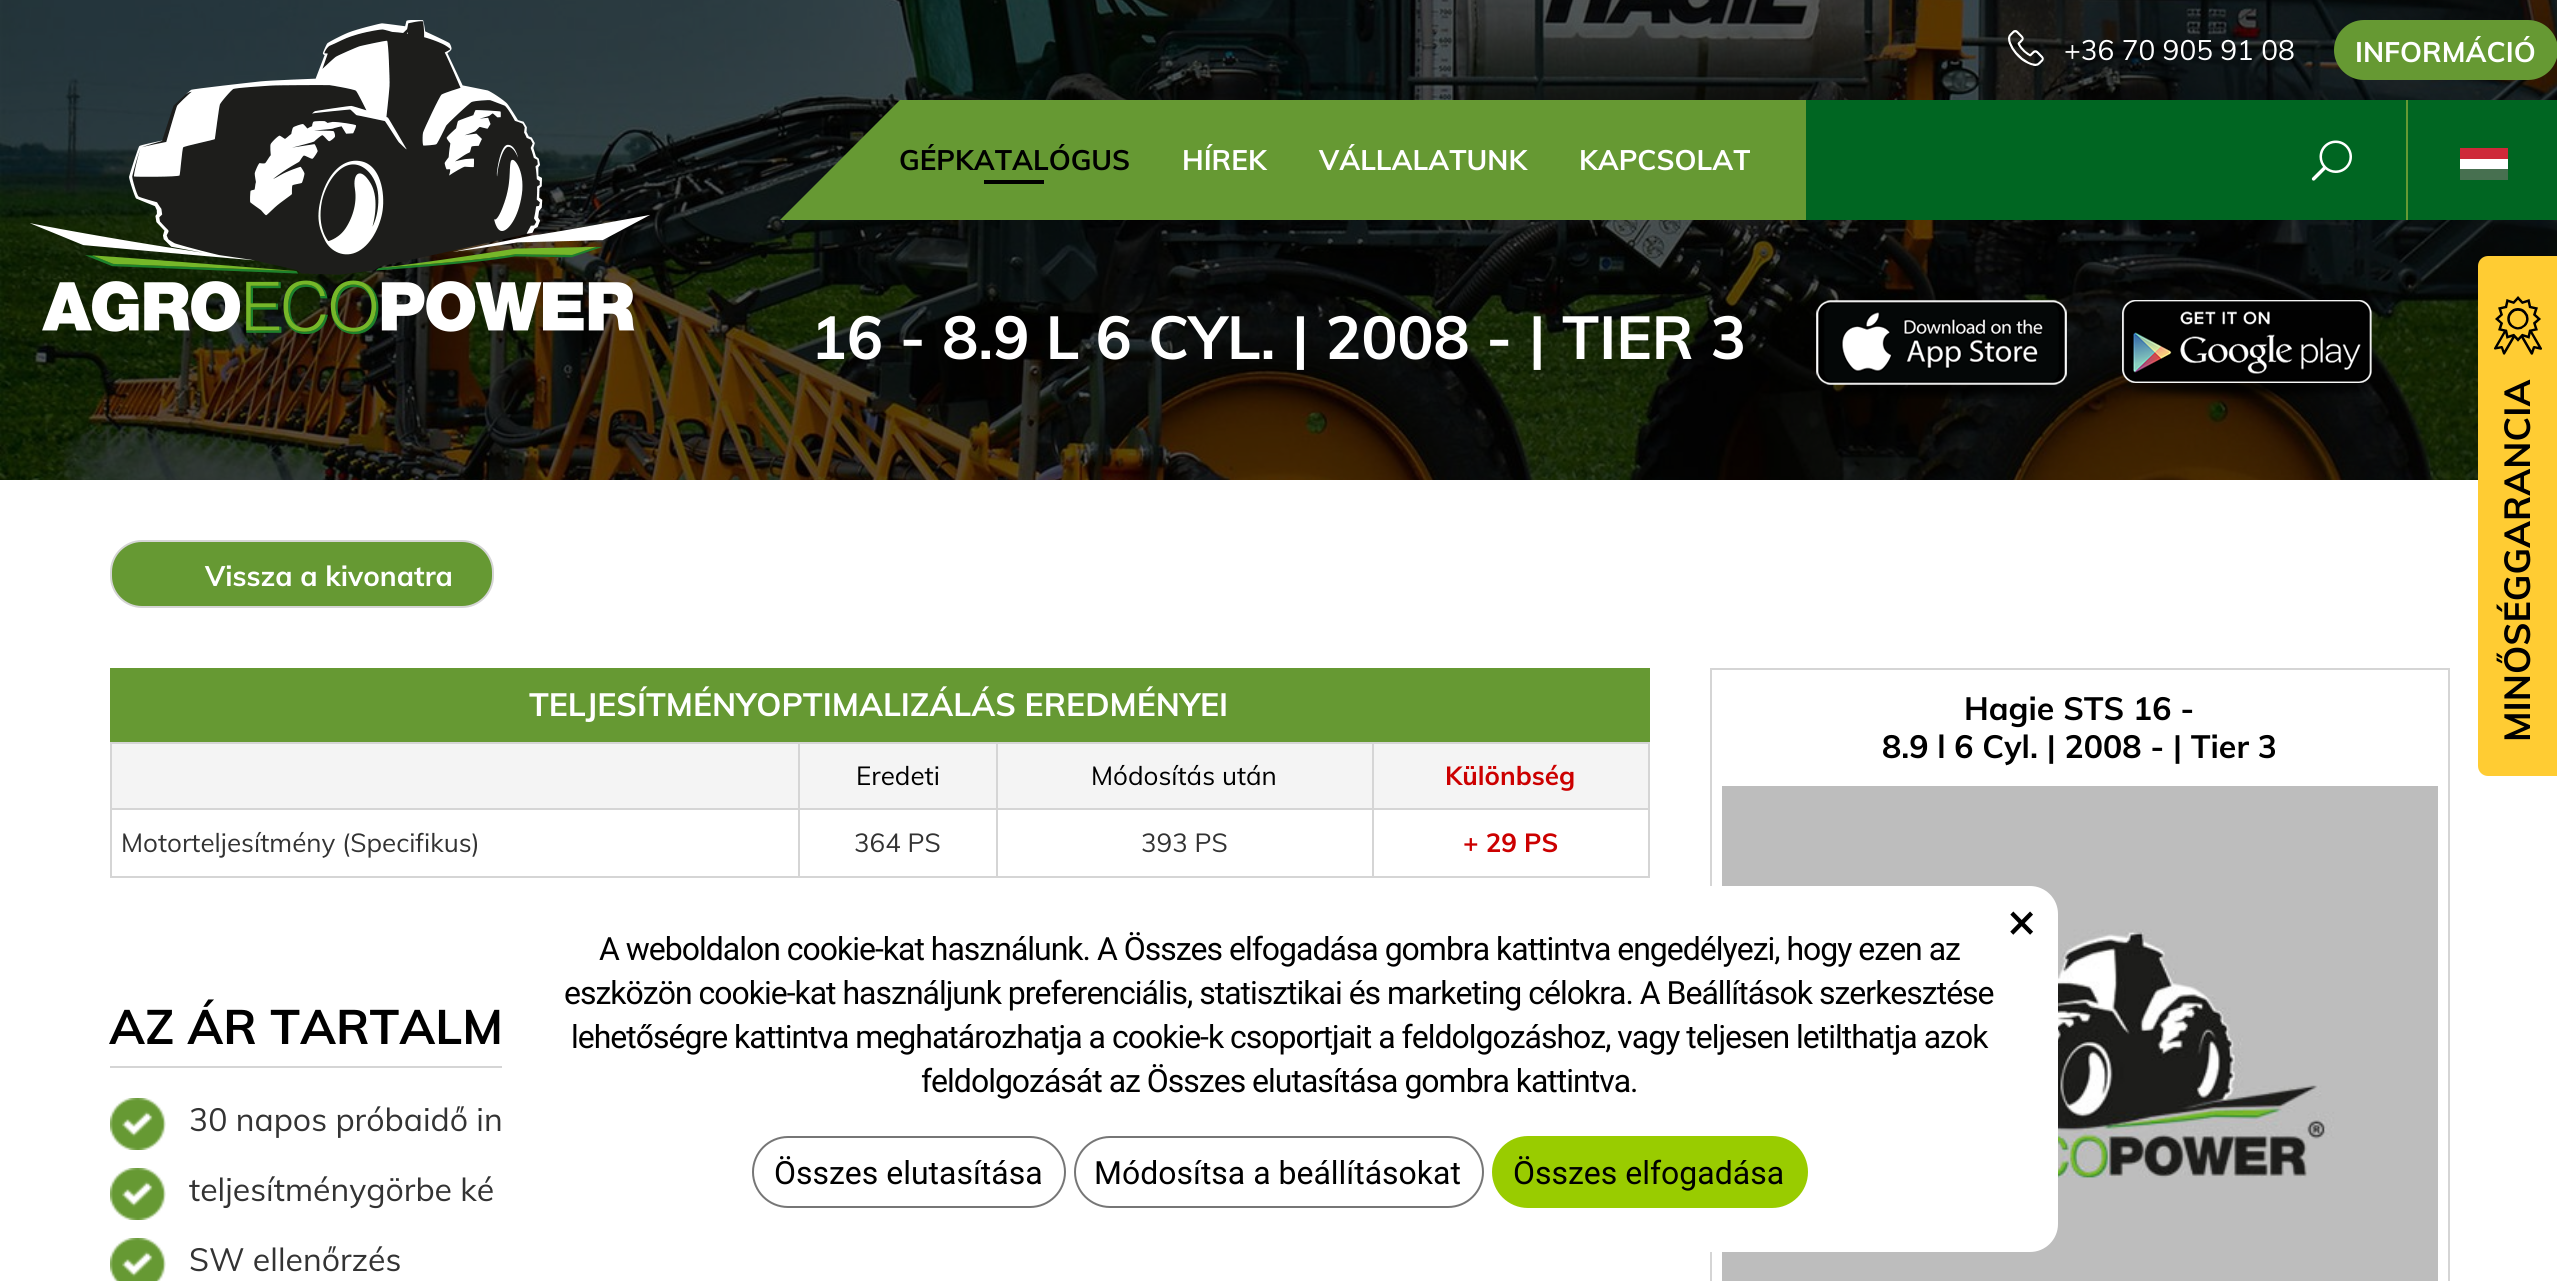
import math
import cairo

surface = cairo.ImageSurface(cairo.FORMAT_RGB24, 2557, 1281)
ctx = cairo.Context(surface)
options = cairo.FontOptions()
options.set_hint_metrics(cairo.HINT_METRICS_OFF)
options.set_hint_style(cairo.HINT_STYLE_NONE)
ctx.set_font_options(options)
ctx.set_miter_limit(4)


def spaced_text(x, y, s, letter, word):
    ctx.move_to(x, y)
    for ch in s:
        ctx.show_text(ch)
        ctx.rel_move_to(letter + word * (ch == ' '), 0)


def round_rect(x, y, w, h, r):
    ctx.new_sub_path()
    for i, (u, v) in enumerate([(x + w - r, y + h - r), (x + r, y + h - r), (x + r, y + r), (x + w - r, y + r)]):
        ctx.arc(u, v, r, i * math.pi / 2, (i + 1) * math.pi / 2)
    ctx.close_path()


def picture(path, x, y, w, h):
    ctx.save()
    ctx.set_source_surface(cairo.ImageSurface.create_from_png(path), x, y)
    ctx.rectangle(x, y, w, h)
    ctx.fill()
    ctx.restore()


ctx.set_source_rgb(1, 1, 1)
ctx.paint()
picture("img4.png", 0, 0, 2557, 480)
picture("img1.png", 30, 20, 620, 314)
ctx.set_source_rgb(0, 0.4, 0.133)
ctx.rectangle(1806, 100, 751, 120)
ctx.fill()
picture("img2.png", 2008, 30, 36, 36)
ctx.select_font_face("Muli")
ctx.set_font_size(28)
ctx.set_source_rgb(1, 1, 1)
ctx.move_to(2064, 60)
ctx.show_text("+36 70 905 91 08")
ctx.set_source_rgb(0.4, 0.6, 0.2)
round_rect(2335, 21, 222, 58, 29)
ctx.fill_preserve()
ctx.stroke()
ctx.select_font_face("Muli", cairo.FONT_SLANT_NORMAL, cairo.FONT_WEIGHT_BOLD)
ctx.set_source_rgb(1, 1, 1)
ctx.move_to(2355, 62)
ctx.show_text("INFORMÁCIÓ")
ctx.set_source_rgb(0.4, 0.6, 0.2)
ctx.rectangle(2406, 100, 2, 120)
ctx.fill()
picture("img3.png", 2311, 140, 41, 41)
ctx.save()
ctx.rectangle(2460, 148, 48, 32)
ctx.clip()
ctx.set_source_rgb(0.278, 0.439, 0.314)
ctx.new_path()
ctx.move_to(2452, 148)
ctx.line_to(2516, 148)
ctx.line_to(2516, 180)
ctx.line_to(2452, 180)
ctx.fill()
ctx.set_source_rgb(1, 1, 1)
ctx.new_path()
ctx.move_to(2452, 148)
ctx.line_to(2516, 148)
ctx.line_to(2516, 169)
ctx.line_to(2452, 169)
ctx.fill()
ctx.set_source_rgb(0.808, 0.161, 0.224)
ctx.new_path()
ctx.move_to(2452, 148)
ctx.line_to(2516, 148)
ctx.line_to(2516, 159)
ctx.line_to(2452, 159)
ctx.fill()
ctx.restore()
ctx.rectangle(900, 100, 906, 120)
ctx.fill()
ctx.new_path()
ctx.move_to(900, 220)
ctx.line_to(780, 220)
ctx.line_to(900, 100)
ctx.close_path()
ctx.fill()
ctx.set_source_rgb(0, 0, 0)
ctx.move_to(899, 170)
ctx.show_text("GÉPKATALÓGUS")
ctx.rectangle(984, 180, 60, 4)
ctx.fill()
ctx.set_source_rgb(1, 1, 1)
ctx.move_to(1182, 170)
ctx.show_text("HÍREK")
ctx.move_to(1319, 170)
ctx.show_text("VÁLLALATUNK")
ctx.move_to(1579, 170)
ctx.show_text("KAPCSOLAT")
ctx.set_font_size(60)
ctx.move_to(811, 359)
ctx.show_text("16 - 8.9 L 6 CYL. | 2008 - | TIER 3")
picture("img5.png", 1816, 300, 251, 99)
picture("img6.png", 2122, 300, 250, 99)
ctx.set_source_rgb(0.4, 0.6, 0.2)
round_rect(111, 541, 382, 66, 31)
ctx.fill_preserve()
ctx.set_source_rgb(0.835, 0.835, 0.835)
ctx.stroke()
ctx.set_font_size(28)
ctx.set_source_rgb(1, 1, 1)
ctx.move_to(205, 586)
ctx.show_text("Vissza a kivonatra")
ctx.set_source_rgb(0.4, 0.6, 0.2)
ctx.rectangle(110, 668, 1540, 74)
ctx.fill()
ctx.set_font_size(32)
ctx.set_source_rgb(1, 1, 1)
ctx.move_to(529, 716)
ctx.show_text("TELJESÍTMÉNYOPTIMALIZÁLÁS EREDMÉNYEI")
ctx.set_source_rgb(0.957, 0.957, 0.957)
ctx.rectangle(112, 744, 686, 64)
ctx.fill()
ctx.set_source_rgb(0.835, 0.835, 0.835)
ctx.rectangle(1372, 742, 278, 2)
ctx.fill()
ctx.rectangle(1372, 808, 278, 2)
ctx.fill()
ctx.rectangle(1648, 808, 2, 70)
ctx.fill()
ctx.rectangle(1372, 876, 278, 2)
ctx.fill()
ctx.rectangle(1372, 808, 2, 70)
ctx.fill()
ctx.rectangle(996, 808, 378, 2)
ctx.fill()
ctx.rectangle(1372, 742, 2, 68)
ctx.fill()
ctx.rectangle(996, 742, 378, 2)
ctx.fill()
ctx.rectangle(996, 876, 378, 2)
ctx.fill()
ctx.rectangle(996, 808, 2, 70)
ctx.fill()
ctx.rectangle(798, 808, 200, 2)
ctx.fill()
ctx.rectangle(996, 742, 2, 68)
ctx.fill()
ctx.rectangle(798, 742, 200, 2)
ctx.fill()
ctx.rectangle(798, 876, 200, 2)
ctx.fill()
ctx.rectangle(798, 808, 2, 70)
ctx.fill()
ctx.rectangle(110, 808, 690, 2)
ctx.fill()
ctx.rectangle(798, 742, 2, 68)
ctx.fill()
ctx.rectangle(110, 742, 690, 2)
ctx.fill()
ctx.rectangle(110, 876, 690, 2)
ctx.fill()
ctx.rectangle(110, 808, 2, 70)
ctx.fill()
ctx.rectangle(110, 742, 2, 68)
ctx.fill()
ctx.set_source_rgb(0.957, 0.957, 0.957)
ctx.rectangle(800, 744, 196, 64)
ctx.fill()
ctx.select_font_face("Muli")
ctx.set_font_size(26)
ctx.set_source_rgb(0, 0, 0)
ctx.move_to(856, 785)
ctx.show_text("Eredeti")
ctx.set_source_rgb(0.957, 0.957, 0.957)
ctx.rectangle(998, 744, 374, 64)
ctx.fill()
ctx.set_source_rgb(0, 0, 0)
ctx.move_to(1091, 785)
ctx.show_text("Módosítás után")
ctx.set_source_rgb(0.957, 0.957, 0.957)
ctx.rectangle(1374, 744, 274, 64)
ctx.fill()
ctx.set_source_rgb(0.835, 0.835, 0.835)
ctx.rectangle(1648, 742, 2, 68)
ctx.fill()
ctx.select_font_face("Muli", cairo.FONT_SLANT_NORMAL, cairo.FONT_WEIGHT_BOLD)
ctx.set_source_rgb(0.8, 0, 0)
ctx.move_to(1445, 785)
ctx.show_text("Különbség")
ctx.select_font_face("Muli")
ctx.set_source_rgb(0.2, 0.2, 0.2)
ctx.move_to(121, 852)
ctx.show_text("Motorteljesítmény (Specifikus)")
ctx.move_to(854, 852)
ctx.show_text("364 PS")
ctx.move_to(1141, 852)
ctx.show_text("393 PS")
ctx.select_font_face("Muli", cairo.FONT_SLANT_NORMAL, cairo.FONT_WEIGHT_BOLD)
ctx.set_source_rgb(0.8, 0, 0)
ctx.move_to(1463, 852)
ctx.show_text("+ 29 PS")
ctx.set_source_rgb(0.835, 0.835, 0.835)
ctx.rectangle(110, 1066, 392, 2)
ctx.fill()
ctx.set_font_size(48)
ctx.set_source_rgb(0, 0, 0)
ctx.move_to(109, 1044)
ctx.show_text("AZ ÁR TARTALM")
picture("img7.png", 110, 1098, 56, 52)
ctx.select_font_face("Muli")
ctx.set_font_size(32)
ctx.set_source_rgb(0.2, 0.2, 0.2)
ctx.move_to(189, 1131)
ctx.show_text("30 napos próbaidő in")
picture("img7.png", 110, 1168, 56, 52)
ctx.move_to(189, 1201)
ctx.show_text("teljesítménygörbe ké")
picture("img8.png", 110, 1238, 56, 43)
ctx.move_to(189, 1271)
ctx.show_text("SW ellenőrzés")
ctx.rectangle(1711, 669, 738, 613)
ctx.set_source_rgb(0.835, 0.835, 0.835)
ctx.stroke()
ctx.select_font_face("Muli", cairo.FONT_SLANT_NORMAL, cairo.FONT_WEIGHT_BOLD)
ctx.set_source_rgb(0, 0, 0)
ctx.move_to(1964, 720)
ctx.show_text("Hagie STS 16 -")
ctx.move_to(1882, 758)
ctx.show_text("8.9 l 6 Cyl. | 2008 - | Tier 3")
picture("img9.png", 1722, 786, 716, 495)
ctx.set_source_rgb(1, 0.8, 0.2)
ctx.new_path()
ctx.move_to(2488, 256)
ctx.line_to(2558, 256)
ctx.line_to(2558, 776)
ctx.line_to(2488, 776)
ctx.curve_to(2482.5, 776, 2478, 771.5, 2478, 766)
ctx.line_to(2478, 266)
ctx.curve_to(2478, 260.5, 2482.5, 256, 2488, 256)
ctx.close_path()
ctx.fill()
picture("img10.png", 2494, 296, 48, 59)
ctx.set_font_size(36)
ctx.set_source_rgb(0, 0, 0)
ctx.save()
ctx.translate(2530, 742)
ctx.rotate(-90 * math.pi / 180)
ctx.move_to(0, 0)
ctx.show_text("MINŐSÉGGARANCIA")
ctx.restore()
ctx.set_source_rgb(1, 1, 1)
round_rect(502, 886, 1556, 366, 28)
ctx.fill()
ctx.select_font_face("Roboto")
ctx.set_font_size(52)
ctx.set_source_rgb(0, 0, 0)
ctx.move_to(2008, 940)
ctx.show_text("×")
ctx.set_font_size(32)
spaced_text(599, 960, "A weboldalon cookie-kat használunk. A Összes elfogadása gombra kattintva engedélyezi, hogy ezen az", -1, 0)
spaced_text(564, 1004, "eszközön cookie-kat használjunk preferenciális, statisztikai és marketing célokra. A Beállítások szerkesztése", -1, 0)
spaced_text(571, 1048, "lehetőségre kattintva meghatározhatja a cookie-k csoportjait a feldolgozáshoz, vagy teljesen letilthatja azok", -1, 0)
spaced_text(921, 1092, "feldolgozását az Összes elutasítása gombra kattintva.", -1, 0)
round_rect(753, 1137, 312, 70, 35)
ctx.set_source_rgb(0.463, 0.463, 0.463)
ctx.stroke()
ctx.set_source_rgb(0, 0, 0)
ctx.move_to(774, 1184)
ctx.show_text("Összes elutasítása")
round_rect(1075, 1137, 408, 70, 35)
ctx.set_source_rgb(0.463, 0.463, 0.463)
ctx.stroke()
ctx.set_source_rgb(0, 0, 0)
ctx.move_to(1094, 1184)
ctx.show_text("Módosítsa a beállításokat")
ctx.set_source_rgb(0.6, 0.8, 0)
round_rect(1493, 1137, 314, 70, 35)
ctx.fill_preserve()
ctx.stroke()
ctx.set_source_rgb(0, 0, 0)
ctx.move_to(1513, 1184)
ctx.show_text("Összes elfogadása")
surface.write_to_png("page.png")
